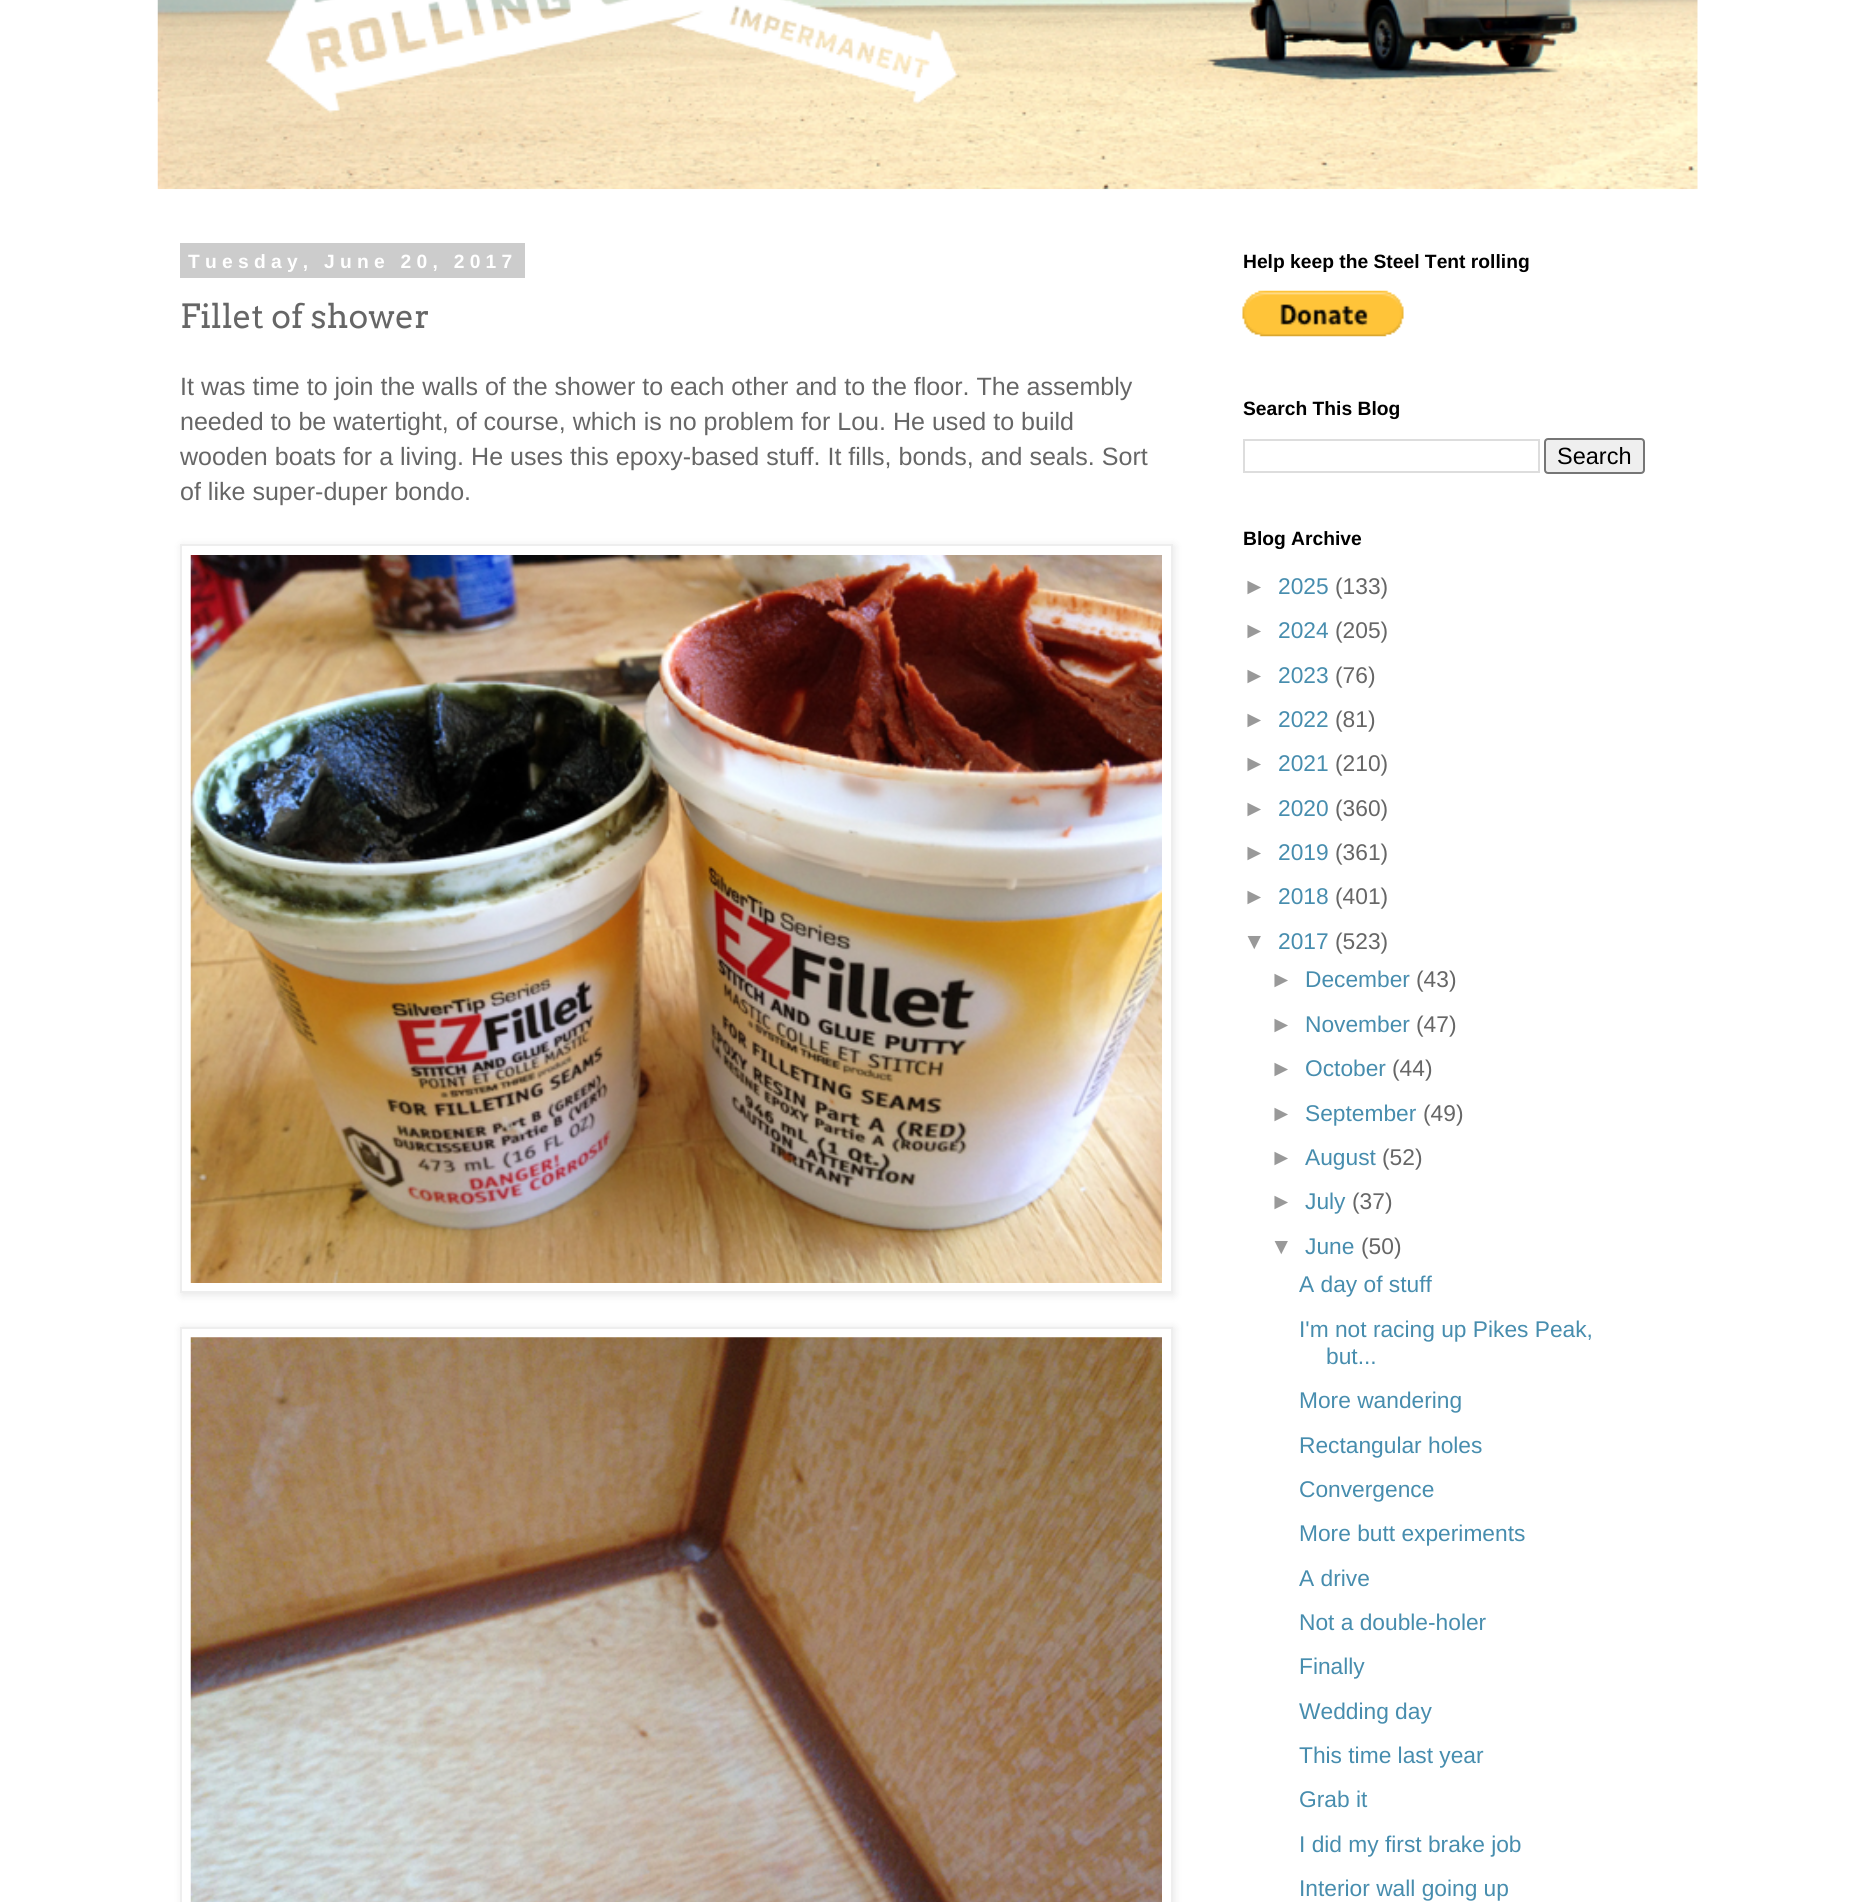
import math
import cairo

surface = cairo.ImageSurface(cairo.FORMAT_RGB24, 1854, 1902)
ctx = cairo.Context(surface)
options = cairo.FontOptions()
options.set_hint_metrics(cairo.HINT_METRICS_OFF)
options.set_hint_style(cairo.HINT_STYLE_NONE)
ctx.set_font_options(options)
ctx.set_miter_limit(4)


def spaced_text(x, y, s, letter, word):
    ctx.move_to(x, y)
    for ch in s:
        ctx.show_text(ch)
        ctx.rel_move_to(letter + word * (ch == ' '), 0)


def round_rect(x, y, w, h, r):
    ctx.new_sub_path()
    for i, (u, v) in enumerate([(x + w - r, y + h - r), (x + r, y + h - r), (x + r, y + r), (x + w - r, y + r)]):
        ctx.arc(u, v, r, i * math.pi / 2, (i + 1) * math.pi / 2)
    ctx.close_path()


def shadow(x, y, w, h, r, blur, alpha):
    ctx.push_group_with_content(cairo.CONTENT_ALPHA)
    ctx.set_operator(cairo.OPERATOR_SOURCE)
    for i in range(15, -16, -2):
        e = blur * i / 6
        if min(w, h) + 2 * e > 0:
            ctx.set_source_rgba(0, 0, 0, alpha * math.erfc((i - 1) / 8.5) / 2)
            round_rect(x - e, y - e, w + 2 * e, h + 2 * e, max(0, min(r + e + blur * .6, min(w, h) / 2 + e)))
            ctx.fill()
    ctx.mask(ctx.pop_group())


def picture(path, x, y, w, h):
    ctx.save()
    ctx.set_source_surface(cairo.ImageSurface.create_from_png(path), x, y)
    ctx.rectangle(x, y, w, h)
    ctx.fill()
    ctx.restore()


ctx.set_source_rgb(1, 1, 1)
ctx.paint()
picture("img1.png", 157, 0, 1541, 190)
ctx.set_source_rgb(0.8, 0.8, 0.8)
ctx.rectangle(180, 243, 345, 35)
ctx.fill()
ctx.select_font_face("Liberation Sans", cairo.FONT_SLANT_NORMAL, cairo.FONT_WEIGHT_BOLD)
ctx.set_font_size(19.25)
ctx.set_source_rgb(1, 1, 1)
spaced_text(188, 268, "Tuesday, June 20, 2017", 5.25, 0)
ctx.select_font_face("Arvo")
ctx.set_font_size(33.25)
ctx.set_source_rgb(0.4, 0.4, 0.4)
ctx.move_to(180, 328)
ctx.show_text("Fillet of shower")
ctx.select_font_face("Liberation Sans")
ctx.set_font_size(25.05)
ctx.move_to(180, 395)
ctx.show_text("It was time to join the walls of the shower to each other and to the floor. The assembly")
ctx.move_to(180, 430)
ctx.show_text("needed to be watertight, of course, which is no problem for Lou. He used to build")
ctx.move_to(180, 465)
ctx.show_text("wooden boats for a living. He uses this epoxy-based stuff. It fills, bonds, and seals. Sort")
ctx.move_to(180, 500)
ctx.show_text("of like super-duper bondo.")
ctx.set_source_rgb(0, 0, 0)
shadow(182, 546, 992, 749, 0, 4.5, 0.1)
ctx.set_source_rgb(1, 1, 1)
ctx.rectangle(181, 545, 991, 747)
ctx.fill_preserve()
ctx.set_source_rgb(0.933, 0.933, 0.933)
ctx.stroke()
picture("img2.png", 190, 555, 972, 728)
ctx.set_source_rgb(0, 0, 0)
shadow(182, 1328, 992, 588, 0, 4.5, 0.1)
ctx.set_source_rgb(1, 1, 1)
ctx.rectangle(181, 1328, 991, 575)
ctx.fill_preserve()
ctx.set_source_rgb(0.933, 0.933, 0.933)
ctx.stroke()
picture("img3.png", 190, 1337, 972, 565)
ctx.select_font_face("Liberation Sans", cairo.FONT_SLANT_NORMAL, cairo.FONT_WEIGHT_BOLD)
ctx.set_font_size(19.25)
ctx.set_source_rgb(0, 0, 0)
ctx.move_to(1243, 268)
ctx.show_text("Help keep the Steel Tent rolling")
picture("img4.png", 1242, 290, 162, 47)
ctx.move_to(1243, 415)
ctx.show_text("Search This Blog")
ctx.rectangle(1244, 440, 295, 32)
ctx.set_source_rgb(0.867, 0.867, 0.867)
ctx.stroke()
ctx.set_source_rgb(0.937, 0.937, 0.937)
round_rect(1545, 439, 99, 34, 3)
ctx.fill_preserve()
ctx.set_source_rgb(0.463, 0.463, 0.463)
ctx.stroke()
ctx.select_font_face("Liberation Sans")
ctx.set_font_size(23.5)
ctx.set_source_rgb(0, 0, 0)
ctx.move_to(1557, 464)
ctx.show_text("Search")
ctx.select_font_face("Liberation Sans", cairo.FONT_SLANT_NORMAL, cairo.FONT_WEIGHT_BOLD)
ctx.set_font_size(19.25)
ctx.move_to(1243, 545)
ctx.show_text("Blog Archive")
ctx.select_font_face("Liberation Sans")
ctx.set_font_size(22.75)
ctx.set_source_rgb(0.6, 0.6, 0.6)
ctx.move_to(1243, 594)
ctx.show_text("►")
ctx.set_source_rgb(0.278, 0.553, 0.682)
ctx.move_to(1278, 594)
ctx.show_text("2025")
ctx.set_source_rgb(0.4, 0.4, 0.4)
ctx.move_to(1335, 594)
ctx.show_text("(133)")
ctx.set_source_rgb(0.6, 0.6, 0.6)
ctx.move_to(1243, 638)
ctx.show_text("►")
ctx.set_source_rgb(0.278, 0.553, 0.682)
ctx.move_to(1278, 638)
ctx.show_text("2024")
ctx.set_source_rgb(0.4, 0.4, 0.4)
ctx.move_to(1335, 638)
ctx.show_text("(205)")
ctx.set_source_rgb(0.6, 0.6, 0.6)
ctx.move_to(1243, 683)
ctx.show_text("►")
ctx.set_source_rgb(0.278, 0.553, 0.682)
ctx.move_to(1278, 683)
ctx.show_text("2023")
ctx.set_source_rgb(0.4, 0.4, 0.4)
ctx.move_to(1335, 683)
ctx.show_text("(76)")
ctx.set_source_rgb(0.6, 0.6, 0.6)
ctx.move_to(1243, 727)
ctx.show_text("►")
ctx.set_source_rgb(0.278, 0.553, 0.682)
ctx.move_to(1278, 727)
ctx.show_text("2022")
ctx.set_source_rgb(0.4, 0.4, 0.4)
ctx.move_to(1335, 727)
ctx.show_text("(81)")
ctx.set_source_rgb(0.6, 0.6, 0.6)
ctx.move_to(1243, 771)
ctx.show_text("►")
ctx.set_source_rgb(0.278, 0.553, 0.682)
ctx.move_to(1278, 771)
ctx.show_text("2021")
ctx.set_source_rgb(0.4, 0.4, 0.4)
ctx.move_to(1335, 771)
ctx.show_text("(210)")
ctx.set_source_rgb(0.6, 0.6, 0.6)
ctx.move_to(1243, 816)
ctx.show_text("►")
ctx.set_source_rgb(0.278, 0.553, 0.682)
ctx.move_to(1278, 816)
ctx.show_text("2020")
ctx.set_source_rgb(0.4, 0.4, 0.4)
ctx.move_to(1335, 816)
ctx.show_text("(360)")
ctx.set_source_rgb(0.6, 0.6, 0.6)
ctx.move_to(1243, 860)
ctx.show_text("►")
ctx.set_source_rgb(0.278, 0.553, 0.682)
ctx.move_to(1278, 860)
ctx.show_text("2019")
ctx.set_source_rgb(0.4, 0.4, 0.4)
ctx.move_to(1335, 860)
ctx.show_text("(361)")
ctx.set_source_rgb(0.6, 0.6, 0.6)
ctx.move_to(1243, 904)
ctx.show_text("►")
ctx.set_source_rgb(0.278, 0.553, 0.682)
ctx.move_to(1278, 904)
ctx.show_text("2018")
ctx.set_source_rgb(0.4, 0.4, 0.4)
ctx.move_to(1335, 904)
ctx.show_text("(401)")
ctx.set_source_rgb(0.6, 0.6, 0.6)
ctx.move_to(1243, 949)
ctx.show_text("▼")
ctx.set_source_rgb(0.278, 0.553, 0.682)
ctx.move_to(1278, 949)
ctx.show_text("2017")
ctx.set_source_rgb(0.4, 0.4, 0.4)
ctx.move_to(1335, 949)
ctx.show_text("(523)")
ctx.set_source_rgb(0.6, 0.6, 0.6)
ctx.move_to(1270, 987)
ctx.show_text("►")
ctx.set_source_rgb(0.278, 0.553, 0.682)
ctx.move_to(1305, 987)
ctx.show_text("December")
ctx.set_source_rgb(0.4, 0.4, 0.4)
ctx.move_to(1416, 987)
ctx.show_text("(43)")
ctx.set_source_rgb(0.6, 0.6, 0.6)
ctx.move_to(1270, 1032)
ctx.show_text("►")
ctx.set_source_rgb(0.278, 0.553, 0.682)
ctx.move_to(1305, 1032)
ctx.show_text("November")
ctx.set_source_rgb(0.4, 0.4, 0.4)
ctx.move_to(1416, 1032)
ctx.show_text("(47)")
ctx.set_source_rgb(0.6, 0.6, 0.6)
ctx.move_to(1270, 1076)
ctx.show_text("►")
ctx.set_source_rgb(0.278, 0.553, 0.682)
ctx.move_to(1305, 1076)
ctx.show_text("October")
ctx.set_source_rgb(0.4, 0.4, 0.4)
ctx.move_to(1392, 1076)
ctx.show_text("(44)")
ctx.set_source_rgb(0.6, 0.6, 0.6)
ctx.move_to(1270, 1121)
ctx.show_text("►")
ctx.set_source_rgb(0.278, 0.553, 0.682)
ctx.move_to(1305, 1121)
ctx.show_text("September")
ctx.set_source_rgb(0.4, 0.4, 0.4)
ctx.move_to(1423, 1121)
ctx.show_text("(49)")
ctx.set_source_rgb(0.6, 0.6, 0.6)
ctx.move_to(1270, 1165)
ctx.show_text("►")
ctx.set_source_rgb(0.278, 0.553, 0.682)
ctx.move_to(1305, 1165)
ctx.show_text("August")
ctx.set_source_rgb(0.4, 0.4, 0.4)
ctx.move_to(1382, 1165)
ctx.show_text("(52)")
ctx.set_source_rgb(0.6, 0.6, 0.6)
ctx.move_to(1270, 1209)
ctx.show_text("►")
ctx.set_source_rgb(0.278, 0.553, 0.682)
ctx.move_to(1305, 1209)
ctx.show_text("July")
ctx.set_source_rgb(0.4, 0.4, 0.4)
ctx.move_to(1352, 1209)
ctx.show_text("(37)")
ctx.set_source_rgb(0.6, 0.6, 0.6)
ctx.move_to(1270, 1254)
ctx.show_text("▼")
ctx.set_source_rgb(0.278, 0.553, 0.682)
ctx.move_to(1305, 1254)
ctx.show_text("June")
ctx.set_source_rgb(0.4, 0.4, 0.4)
ctx.move_to(1361, 1254)
ctx.show_text("(50)")
ctx.set_source_rgb(0.278, 0.553, 0.682)
ctx.move_to(1299, 1292)
ctx.show_text("A day of stuff")
ctx.move_to(1299, 1337)
ctx.show_text("I'm not racing up Pikes Peak,")
ctx.move_to(1326, 1364)
ctx.show_text("but...")
ctx.move_to(1299, 1408)
ctx.show_text("More wandering")
ctx.move_to(1299, 1453)
ctx.show_text("Rectangular holes")
ctx.move_to(1299, 1497)
ctx.show_text("Convergence")
ctx.move_to(1299, 1541)
ctx.show_text("More butt experiments")
ctx.move_to(1299, 1586)
ctx.show_text("A drive")
ctx.move_to(1299, 1630)
ctx.show_text("Not a double-holer")
ctx.move_to(1299, 1674)
ctx.show_text("Finally")
ctx.move_to(1299, 1719)
ctx.show_text("Wedding day")
ctx.move_to(1299, 1763)
ctx.show_text("This time last year")
ctx.move_to(1299, 1807)
ctx.show_text("Grab it")
ctx.move_to(1299, 1852)
ctx.show_text("I did my first brake job")
ctx.move_to(1299, 1896)
ctx.show_text("Interior wall going up")
surface.write_to_png("page.png")
